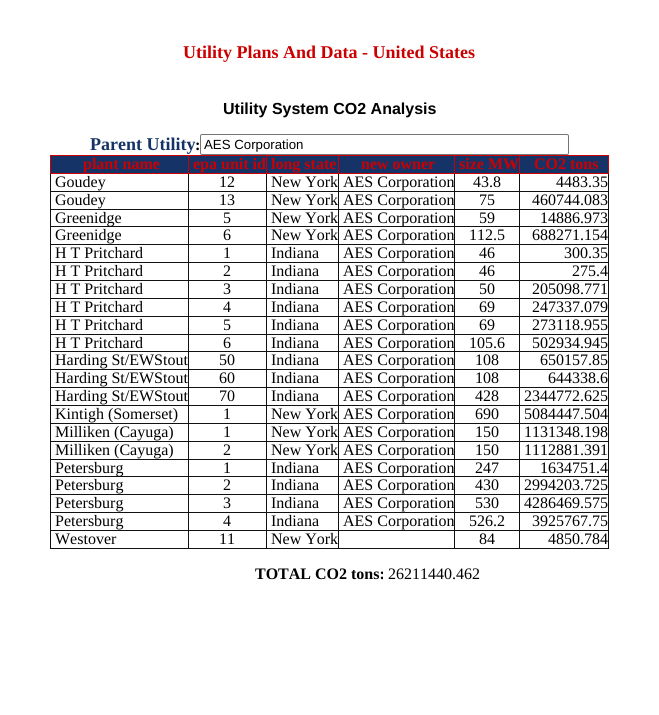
import math
import cairo

surface = cairo.ImageSurface(cairo.FORMAT_RGB24, 659, 715)
ctx = cairo.Context(surface)
options = cairo.FontOptions()
options.set_hint_metrics(cairo.HINT_METRICS_OFF)
options.set_hint_style(cairo.HINT_STYLE_NONE)
ctx.set_font_options(options)
ctx.set_miter_limit(4)


def round_rect(x, y, w, h, r):
    ctx.new_sub_path()
    for i, (u, v) in enumerate([(x + w - r, y + h - r), (x + r, y + h - r), (x + r, y + r), (x + w - r, y + r)]):
        ctx.arc(u, v, r, i * math.pi / 2, (i + 1) * math.pi / 2)
    ctx.close_path()


ctx.set_source_rgb(1, 1, 1)
ctx.paint()
ctx.select_font_face("Liberation Serif", cairo.FONT_SLANT_NORMAL, cairo.FONT_WEIGHT_BOLD)
ctx.set_font_size(18)
ctx.set_source_rgb(0.8, 0, 0)
ctx.move_to(183, 58)
ctx.show_text("Utility Plans And Data - United States")
ctx.select_font_face("Liberation Sans", cairo.FONT_SLANT_NORMAL, cairo.FONT_WEIGHT_BOLD)
ctx.set_font_size(16)
ctx.set_source_rgb(0, 0, 0)
ctx.move_to(223, 114)
ctx.show_text("Utility System CO2 Analysis")
ctx.select_font_face("Liberation Serif", cairo.FONT_SLANT_NORMAL, cairo.FONT_WEIGHT_BOLD)
ctx.set_font_size(18)
ctx.set_source_rgb(0.086, 0.2, 0.404)
ctx.move_to(90, 150)
ctx.show_text("Parent Utility")
ctx.set_font_size(16)
ctx.set_source_rgb(0, 0, 0)
ctx.move_to(195, 150)
ctx.show_text(":")
round_rect(200.5, 134.5, 368, 20, 1.5)
ctx.set_source_rgb(0.463, 0.463, 0.463)
ctx.set_line_width(1)
ctx.stroke()
ctx.select_font_face("Liberation Sans")
ctx.set_font_size(13.25)
ctx.set_source_rgb(0, 0, 0)
ctx.move_to(204, 149)
ctx.show_text("AES Corporation")
ctx.set_source_rgb(0.086, 0.2, 0.404)
ctx.rectangle(51, 156, 137, 17)
ctx.fill()
ctx.set_source_rgb(0.8, 0, 0)
ctx.rectangle(50, 155, 559, 1)
ctx.fill()
ctx.set_source_rgb(0.067, 0.067, 0.067)
ctx.rectangle(608, 244, 1, 305)
ctx.fill()
ctx.rectangle(608, 173, 1, 72)
ctx.fill()
ctx.set_source_rgb(0.8, 0, 0)
ctx.rectangle(608, 155, 1, 19)
ctx.fill()
ctx.set_source_rgb(0.067, 0.067, 0.067)
ctx.rectangle(519, 548, 90, 1)
ctx.fill()
ctx.rectangle(519, 530, 1, 19)
ctx.fill()
ctx.rectangle(519, 530, 90, 1)
ctx.fill()
ctx.rectangle(519, 512, 1, 19)
ctx.fill()
ctx.rectangle(519, 512, 90, 1)
ctx.fill()
ctx.rectangle(519, 494, 1, 19)
ctx.fill()
ctx.rectangle(519, 494, 90, 1)
ctx.fill()
ctx.rectangle(519, 476, 1, 19)
ctx.fill()
ctx.rectangle(519, 476, 90, 1)
ctx.fill()
ctx.rectangle(519, 459, 1, 18)
ctx.fill()
ctx.rectangle(519, 459, 90, 1)
ctx.fill()
ctx.rectangle(519, 441, 1, 19)
ctx.fill()
ctx.rectangle(519, 441, 90, 1)
ctx.fill()
ctx.rectangle(519, 423, 1, 19)
ctx.fill()
ctx.rectangle(519, 423, 90, 1)
ctx.fill()
ctx.rectangle(519, 405, 1, 19)
ctx.fill()
ctx.rectangle(519, 405, 90, 1)
ctx.fill()
ctx.rectangle(519, 387, 1, 19)
ctx.fill()
ctx.rectangle(519, 387, 90, 1)
ctx.fill()
ctx.rectangle(519, 369, 1, 19)
ctx.fill()
ctx.rectangle(519, 369, 90, 1)
ctx.fill()
ctx.rectangle(519, 351, 1, 19)
ctx.fill()
ctx.rectangle(519, 351, 90, 1)
ctx.fill()
ctx.rectangle(519, 334, 1, 18)
ctx.fill()
ctx.rectangle(519, 334, 90, 1)
ctx.fill()
ctx.rectangle(519, 316, 1, 19)
ctx.fill()
ctx.rectangle(519, 316, 90, 1)
ctx.fill()
ctx.rectangle(519, 298, 1, 19)
ctx.fill()
ctx.rectangle(519, 298, 90, 1)
ctx.fill()
ctx.rectangle(519, 280, 1, 19)
ctx.fill()
ctx.rectangle(519, 280, 90, 1)
ctx.fill()
ctx.rectangle(519, 262, 1, 19)
ctx.fill()
ctx.rectangle(519, 262, 90, 1)
ctx.fill()
ctx.rectangle(519, 244, 1, 19)
ctx.fill()
ctx.rectangle(519, 244, 90, 1)
ctx.fill()
ctx.rectangle(519, 226, 1, 19)
ctx.fill()
ctx.rectangle(519, 226, 90, 1)
ctx.fill()
ctx.rectangle(519, 209, 1, 18)
ctx.fill()
ctx.rectangle(519, 209, 90, 1)
ctx.fill()
ctx.rectangle(519, 191, 1, 19)
ctx.fill()
ctx.rectangle(519, 191, 90, 1)
ctx.fill()
ctx.rectangle(519, 173, 1, 19)
ctx.fill()
ctx.set_source_rgb(0.8, 0, 0)
ctx.rectangle(519, 173, 90, 1)
ctx.fill()
ctx.rectangle(519, 155, 1, 19)
ctx.fill()
ctx.set_source_rgb(0.067, 0.067, 0.067)
ctx.rectangle(454, 548, 66, 1)
ctx.fill()
ctx.rectangle(454, 530, 1, 19)
ctx.fill()
ctx.rectangle(454, 530, 66, 1)
ctx.fill()
ctx.rectangle(454, 512, 1, 19)
ctx.fill()
ctx.rectangle(454, 512, 66, 1)
ctx.fill()
ctx.rectangle(454, 494, 1, 19)
ctx.fill()
ctx.rectangle(454, 494, 66, 1)
ctx.fill()
ctx.rectangle(454, 476, 1, 19)
ctx.fill()
ctx.rectangle(454, 476, 66, 1)
ctx.fill()
ctx.rectangle(454, 459, 1, 18)
ctx.fill()
ctx.rectangle(454, 459, 66, 1)
ctx.fill()
ctx.rectangle(454, 441, 1, 19)
ctx.fill()
ctx.rectangle(454, 441, 66, 1)
ctx.fill()
ctx.rectangle(454, 423, 1, 19)
ctx.fill()
ctx.rectangle(454, 423, 66, 1)
ctx.fill()
ctx.rectangle(454, 405, 1, 19)
ctx.fill()
ctx.rectangle(454, 405, 66, 1)
ctx.fill()
ctx.rectangle(454, 387, 1, 19)
ctx.fill()
ctx.rectangle(454, 387, 66, 1)
ctx.fill()
ctx.rectangle(454, 369, 1, 19)
ctx.fill()
ctx.rectangle(454, 369, 66, 1)
ctx.fill()
ctx.rectangle(454, 351, 1, 19)
ctx.fill()
ctx.rectangle(454, 351, 66, 1)
ctx.fill()
ctx.rectangle(454, 334, 1, 18)
ctx.fill()
ctx.rectangle(454, 334, 66, 1)
ctx.fill()
ctx.rectangle(454, 316, 1, 19)
ctx.fill()
ctx.rectangle(454, 316, 66, 1)
ctx.fill()
ctx.rectangle(454, 298, 1, 19)
ctx.fill()
ctx.rectangle(454, 298, 66, 1)
ctx.fill()
ctx.rectangle(454, 280, 1, 19)
ctx.fill()
ctx.rectangle(454, 280, 66, 1)
ctx.fill()
ctx.rectangle(454, 262, 1, 19)
ctx.fill()
ctx.rectangle(454, 262, 66, 1)
ctx.fill()
ctx.rectangle(454, 244, 1, 19)
ctx.fill()
ctx.rectangle(454, 244, 66, 1)
ctx.fill()
ctx.rectangle(454, 226, 1, 19)
ctx.fill()
ctx.rectangle(454, 226, 66, 1)
ctx.fill()
ctx.rectangle(454, 209, 1, 18)
ctx.fill()
ctx.rectangle(454, 209, 66, 1)
ctx.fill()
ctx.rectangle(454, 191, 1, 19)
ctx.fill()
ctx.rectangle(454, 191, 66, 1)
ctx.fill()
ctx.rectangle(454, 173, 1, 19)
ctx.fill()
ctx.set_source_rgb(0.8, 0, 0)
ctx.rectangle(454, 173, 66, 1)
ctx.fill()
ctx.rectangle(454, 155, 1, 19)
ctx.fill()
ctx.set_source_rgb(0.067, 0.067, 0.067)
ctx.rectangle(338, 548, 117, 1)
ctx.fill()
ctx.rectangle(338, 530, 1, 19)
ctx.fill()
ctx.rectangle(338, 530, 117, 1)
ctx.fill()
ctx.rectangle(338, 512, 1, 19)
ctx.fill()
ctx.rectangle(338, 512, 117, 1)
ctx.fill()
ctx.rectangle(338, 494, 1, 19)
ctx.fill()
ctx.rectangle(338, 494, 117, 1)
ctx.fill()
ctx.rectangle(338, 476, 1, 19)
ctx.fill()
ctx.rectangle(338, 476, 117, 1)
ctx.fill()
ctx.rectangle(338, 459, 1, 18)
ctx.fill()
ctx.rectangle(338, 459, 117, 1)
ctx.fill()
ctx.rectangle(338, 441, 1, 19)
ctx.fill()
ctx.rectangle(338, 441, 117, 1)
ctx.fill()
ctx.rectangle(338, 423, 1, 19)
ctx.fill()
ctx.rectangle(338, 423, 117, 1)
ctx.fill()
ctx.rectangle(338, 405, 1, 19)
ctx.fill()
ctx.rectangle(338, 405, 117, 1)
ctx.fill()
ctx.rectangle(338, 387, 1, 19)
ctx.fill()
ctx.rectangle(338, 387, 117, 1)
ctx.fill()
ctx.rectangle(338, 369, 1, 19)
ctx.fill()
ctx.rectangle(338, 369, 117, 1)
ctx.fill()
ctx.rectangle(338, 351, 1, 19)
ctx.fill()
ctx.rectangle(338, 351, 117, 1)
ctx.fill()
ctx.rectangle(338, 334, 1, 18)
ctx.fill()
ctx.rectangle(338, 334, 117, 1)
ctx.fill()
ctx.rectangle(338, 316, 1, 19)
ctx.fill()
ctx.rectangle(338, 316, 117, 1)
ctx.fill()
ctx.rectangle(338, 298, 1, 19)
ctx.fill()
ctx.rectangle(338, 298, 117, 1)
ctx.fill()
ctx.rectangle(338, 280, 1, 19)
ctx.fill()
ctx.rectangle(338, 280, 117, 1)
ctx.fill()
ctx.rectangle(338, 262, 1, 19)
ctx.fill()
ctx.rectangle(338, 262, 117, 1)
ctx.fill()
ctx.rectangle(338, 244, 1, 19)
ctx.fill()
ctx.rectangle(338, 244, 117, 1)
ctx.fill()
ctx.rectangle(338, 226, 1, 19)
ctx.fill()
ctx.rectangle(338, 226, 117, 1)
ctx.fill()
ctx.rectangle(338, 209, 1, 18)
ctx.fill()
ctx.rectangle(338, 209, 117, 1)
ctx.fill()
ctx.rectangle(338, 191, 1, 19)
ctx.fill()
ctx.rectangle(338, 191, 117, 1)
ctx.fill()
ctx.rectangle(338, 173, 1, 19)
ctx.fill()
ctx.set_source_rgb(0.8, 0, 0)
ctx.rectangle(338, 173, 117, 1)
ctx.fill()
ctx.rectangle(338, 155, 1, 19)
ctx.fill()
ctx.set_source_rgb(0.067, 0.067, 0.067)
ctx.rectangle(266, 548, 73, 1)
ctx.fill()
ctx.rectangle(266, 530, 1, 19)
ctx.fill()
ctx.rectangle(266, 530, 73, 1)
ctx.fill()
ctx.rectangle(266, 512, 1, 19)
ctx.fill()
ctx.rectangle(266, 512, 73, 1)
ctx.fill()
ctx.rectangle(266, 494, 1, 19)
ctx.fill()
ctx.rectangle(266, 494, 73, 1)
ctx.fill()
ctx.rectangle(266, 476, 1, 19)
ctx.fill()
ctx.rectangle(266, 476, 73, 1)
ctx.fill()
ctx.rectangle(266, 459, 1, 18)
ctx.fill()
ctx.rectangle(266, 459, 73, 1)
ctx.fill()
ctx.rectangle(266, 441, 1, 19)
ctx.fill()
ctx.rectangle(266, 441, 73, 1)
ctx.fill()
ctx.rectangle(266, 423, 1, 19)
ctx.fill()
ctx.rectangle(266, 423, 73, 1)
ctx.fill()
ctx.rectangle(266, 405, 1, 19)
ctx.fill()
ctx.rectangle(266, 405, 73, 1)
ctx.fill()
ctx.rectangle(266, 387, 1, 19)
ctx.fill()
ctx.rectangle(266, 387, 73, 1)
ctx.fill()
ctx.rectangle(266, 369, 1, 19)
ctx.fill()
ctx.rectangle(266, 369, 73, 1)
ctx.fill()
ctx.rectangle(266, 351, 1, 19)
ctx.fill()
ctx.rectangle(266, 351, 73, 1)
ctx.fill()
ctx.rectangle(266, 334, 1, 18)
ctx.fill()
ctx.rectangle(266, 334, 73, 1)
ctx.fill()
ctx.rectangle(266, 316, 1, 19)
ctx.fill()
ctx.rectangle(266, 316, 73, 1)
ctx.fill()
ctx.rectangle(266, 298, 1, 19)
ctx.fill()
ctx.rectangle(266, 298, 73, 1)
ctx.fill()
ctx.rectangle(266, 280, 1, 19)
ctx.fill()
ctx.rectangle(266, 280, 73, 1)
ctx.fill()
ctx.rectangle(266, 262, 1, 19)
ctx.fill()
ctx.rectangle(266, 262, 73, 1)
ctx.fill()
ctx.rectangle(266, 244, 1, 19)
ctx.fill()
ctx.rectangle(266, 244, 73, 1)
ctx.fill()
ctx.rectangle(266, 226, 1, 19)
ctx.fill()
ctx.rectangle(266, 226, 73, 1)
ctx.fill()
ctx.rectangle(266, 209, 1, 18)
ctx.fill()
ctx.rectangle(266, 209, 73, 1)
ctx.fill()
ctx.rectangle(266, 191, 1, 19)
ctx.fill()
ctx.rectangle(266, 191, 73, 1)
ctx.fill()
ctx.rectangle(266, 173, 1, 19)
ctx.fill()
ctx.set_source_rgb(0.8, 0, 0)
ctx.rectangle(266, 173, 73, 1)
ctx.fill()
ctx.rectangle(266, 155, 1, 19)
ctx.fill()
ctx.set_source_rgb(0.067, 0.067, 0.067)
ctx.rectangle(188, 548, 79, 1)
ctx.fill()
ctx.rectangle(188, 530, 1, 19)
ctx.fill()
ctx.rectangle(188, 530, 79, 1)
ctx.fill()
ctx.rectangle(188, 512, 1, 19)
ctx.fill()
ctx.rectangle(188, 512, 79, 1)
ctx.fill()
ctx.rectangle(188, 494, 1, 19)
ctx.fill()
ctx.rectangle(188, 494, 79, 1)
ctx.fill()
ctx.rectangle(188, 476, 1, 19)
ctx.fill()
ctx.rectangle(188, 476, 79, 1)
ctx.fill()
ctx.rectangle(188, 459, 1, 18)
ctx.fill()
ctx.rectangle(188, 459, 79, 1)
ctx.fill()
ctx.rectangle(188, 441, 1, 19)
ctx.fill()
ctx.rectangle(188, 441, 79, 1)
ctx.fill()
ctx.rectangle(188, 423, 1, 19)
ctx.fill()
ctx.rectangle(188, 423, 79, 1)
ctx.fill()
ctx.rectangle(188, 405, 1, 19)
ctx.fill()
ctx.rectangle(188, 405, 79, 1)
ctx.fill()
ctx.rectangle(188, 387, 1, 19)
ctx.fill()
ctx.rectangle(188, 387, 79, 1)
ctx.fill()
ctx.rectangle(188, 369, 1, 19)
ctx.fill()
ctx.rectangle(188, 369, 79, 1)
ctx.fill()
ctx.rectangle(188, 351, 1, 19)
ctx.fill()
ctx.rectangle(188, 351, 79, 1)
ctx.fill()
ctx.rectangle(188, 334, 1, 18)
ctx.fill()
ctx.rectangle(188, 334, 79, 1)
ctx.fill()
ctx.rectangle(188, 316, 1, 19)
ctx.fill()
ctx.rectangle(188, 316, 79, 1)
ctx.fill()
ctx.rectangle(188, 298, 1, 19)
ctx.fill()
ctx.rectangle(188, 298, 79, 1)
ctx.fill()
ctx.rectangle(188, 280, 1, 19)
ctx.fill()
ctx.rectangle(188, 280, 79, 1)
ctx.fill()
ctx.rectangle(188, 262, 1, 19)
ctx.fill()
ctx.rectangle(188, 262, 79, 1)
ctx.fill()
ctx.rectangle(188, 244, 1, 19)
ctx.fill()
ctx.rectangle(188, 244, 79, 1)
ctx.fill()
ctx.rectangle(188, 226, 1, 19)
ctx.fill()
ctx.rectangle(188, 226, 79, 1)
ctx.fill()
ctx.rectangle(188, 209, 1, 18)
ctx.fill()
ctx.rectangle(188, 209, 79, 1)
ctx.fill()
ctx.rectangle(188, 191, 1, 19)
ctx.fill()
ctx.rectangle(188, 191, 79, 1)
ctx.fill()
ctx.rectangle(188, 173, 1, 19)
ctx.fill()
ctx.set_source_rgb(0.8, 0, 0)
ctx.rectangle(188, 173, 79, 1)
ctx.fill()
ctx.rectangle(188, 155, 1, 19)
ctx.fill()
ctx.set_source_rgb(0.067, 0.067, 0.067)
ctx.rectangle(50, 548, 139, 1)
ctx.fill()
ctx.rectangle(50, 530, 1, 19)
ctx.fill()
ctx.rectangle(50, 530, 139, 1)
ctx.fill()
ctx.rectangle(50, 512, 1, 19)
ctx.fill()
ctx.rectangle(50, 512, 139, 1)
ctx.fill()
ctx.rectangle(50, 494, 1, 19)
ctx.fill()
ctx.rectangle(50, 494, 139, 1)
ctx.fill()
ctx.rectangle(50, 476, 1, 19)
ctx.fill()
ctx.rectangle(50, 476, 139, 1)
ctx.fill()
ctx.rectangle(50, 459, 1, 18)
ctx.fill()
ctx.rectangle(50, 459, 139, 1)
ctx.fill()
ctx.rectangle(50, 441, 1, 19)
ctx.fill()
ctx.rectangle(50, 441, 139, 1)
ctx.fill()
ctx.rectangle(50, 423, 1, 19)
ctx.fill()
ctx.rectangle(50, 423, 139, 1)
ctx.fill()
ctx.rectangle(50, 405, 1, 19)
ctx.fill()
ctx.rectangle(50, 405, 139, 1)
ctx.fill()
ctx.rectangle(50, 387, 1, 19)
ctx.fill()
ctx.rectangle(50, 387, 139, 1)
ctx.fill()
ctx.rectangle(50, 369, 1, 19)
ctx.fill()
ctx.rectangle(50, 369, 139, 1)
ctx.fill()
ctx.rectangle(50, 351, 1, 19)
ctx.fill()
ctx.rectangle(50, 351, 139, 1)
ctx.fill()
ctx.rectangle(50, 334, 1, 18)
ctx.fill()
ctx.rectangle(50, 334, 139, 1)
ctx.fill()
ctx.rectangle(50, 316, 1, 19)
ctx.fill()
ctx.rectangle(50, 316, 139, 1)
ctx.fill()
ctx.rectangle(50, 298, 1, 19)
ctx.fill()
ctx.rectangle(50, 298, 139, 1)
ctx.fill()
ctx.rectangle(50, 280, 1, 19)
ctx.fill()
ctx.rectangle(50, 280, 139, 1)
ctx.fill()
ctx.rectangle(50, 262, 1, 19)
ctx.fill()
ctx.rectangle(50, 262, 139, 1)
ctx.fill()
ctx.rectangle(50, 244, 1, 19)
ctx.fill()
ctx.rectangle(50, 244, 139, 1)
ctx.fill()
ctx.rectangle(50, 226, 1, 19)
ctx.fill()
ctx.rectangle(50, 226, 139, 1)
ctx.fill()
ctx.rectangle(50, 209, 1, 18)
ctx.fill()
ctx.rectangle(50, 209, 139, 1)
ctx.fill()
ctx.rectangle(50, 191, 1, 19)
ctx.fill()
ctx.rectangle(50, 191, 139, 1)
ctx.fill()
ctx.rectangle(50, 173, 1, 19)
ctx.fill()
ctx.set_source_rgb(0.8, 0, 0)
ctx.rectangle(50, 173, 139, 1)
ctx.fill()
ctx.rectangle(50, 155, 1, 19)
ctx.fill()
ctx.select_font_face("Liberation Serif", cairo.FONT_SLANT_NORMAL, cairo.FONT_WEIGHT_BOLD)
ctx.set_font_size(16)
ctx.move_to(83, 169)
ctx.show_text("plant name")
ctx.set_source_rgb(0.086, 0.2, 0.404)
ctx.rectangle(189, 156, 77, 17)
ctx.fill()
ctx.set_source_rgb(0.8, 0, 0)
ctx.move_to(193, 169)
ctx.show_text("epa unit id")
ctx.set_source_rgb(0.086, 0.2, 0.404)
ctx.rectangle(267, 156, 71, 17)
ctx.fill()
ctx.set_source_rgb(0.8, 0, 0)
ctx.move_to(271, 169)
ctx.show_text("long state")
ctx.set_source_rgb(0.086, 0.2, 0.404)
ctx.rectangle(339, 156, 115, 17)
ctx.fill()
ctx.set_source_rgb(0.8, 0, 0)
ctx.move_to(361, 169)
ctx.show_text("new owner")
ctx.set_source_rgb(0.086, 0.2, 0.404)
ctx.rectangle(455, 156, 64, 17)
ctx.fill()
ctx.set_source_rgb(0.8, 0, 0)
ctx.move_to(459, 169)
ctx.show_text("size MW")
ctx.set_source_rgb(0.086, 0.2, 0.404)
ctx.rectangle(520, 156, 88, 17)
ctx.fill()
ctx.set_source_rgb(0.8, 0, 0)
ctx.move_to(534, 169)
ctx.show_text("CO2 tons")
ctx.select_font_face("Liberation Serif")
ctx.set_source_rgb(0, 0, 0)
ctx.move_to(55, 187)
ctx.show_text("Goudey")
ctx.move_to(219, 187)
ctx.show_text("12")
ctx.move_to(271, 187)
ctx.show_text("New York")
ctx.move_to(343, 187)
ctx.show_text("AES Corporation")
ctx.move_to(473, 187)
ctx.show_text("43.8")
ctx.move_to(556, 187)
ctx.show_text("4483.35")
ctx.move_to(55, 205)
ctx.show_text("Goudey")
ctx.move_to(219, 205)
ctx.show_text("13")
ctx.move_to(271, 205)
ctx.show_text("New York")
ctx.move_to(343, 205)
ctx.show_text("AES Corporation")
ctx.move_to(479, 205)
ctx.show_text("75")
ctx.move_to(532, 205)
ctx.show_text("460744.083")
ctx.move_to(55, 223)
ctx.show_text("Greenidge")
ctx.move_to(223, 223)
ctx.show_text("5")
ctx.move_to(271, 223)
ctx.show_text("New York")
ctx.move_to(343, 223)
ctx.show_text("AES Corporation")
ctx.move_to(479, 223)
ctx.show_text("59")
ctx.move_to(540, 223)
ctx.show_text("14886.973")
ctx.move_to(55, 240)
ctx.show_text("Greenidge")
ctx.move_to(223, 240)
ctx.show_text("6")
ctx.move_to(271, 240)
ctx.show_text("New York")
ctx.move_to(343, 240)
ctx.show_text("AES Corporation")
ctx.move_to(469, 240)
ctx.show_text("112.5")
ctx.move_to(532, 240)
ctx.show_text("688271.154")
ctx.move_to(55, 258)
ctx.show_text("H T Pritchard")
ctx.move_to(223, 258)
ctx.show_text("1")
ctx.move_to(271, 258)
ctx.show_text("Indiana")
ctx.move_to(343, 258)
ctx.show_text("AES Corporation")
ctx.move_to(479, 258)
ctx.show_text("46")
ctx.move_to(564, 258)
ctx.show_text("300.35")
ctx.move_to(55, 276)
ctx.show_text("H T Pritchard")
ctx.move_to(223, 276)
ctx.show_text("2")
ctx.move_to(271, 276)
ctx.show_text("Indiana")
ctx.move_to(343, 276)
ctx.show_text("AES Corporation")
ctx.move_to(479, 276)
ctx.show_text("46")
ctx.move_to(572, 276)
ctx.show_text("275.4")
ctx.move_to(55, 294)
ctx.show_text("H T Pritchard")
ctx.move_to(223, 294)
ctx.show_text("3")
ctx.move_to(271, 294)
ctx.show_text("Indiana")
ctx.move_to(343, 294)
ctx.show_text("AES Corporation")
ctx.move_to(479, 294)
ctx.show_text("50")
ctx.move_to(532, 294)
ctx.show_text("205098.771")
ctx.move_to(55, 312)
ctx.show_text("H T Pritchard")
ctx.move_to(223, 312)
ctx.show_text("4")
ctx.move_to(271, 312)
ctx.show_text("Indiana")
ctx.move_to(343, 312)
ctx.show_text("AES Corporation")
ctx.move_to(479, 312)
ctx.show_text("69")
ctx.move_to(532, 312)
ctx.show_text("247337.079")
ctx.move_to(55, 330)
ctx.show_text("H T Pritchard")
ctx.move_to(223, 330)
ctx.show_text("5")
ctx.move_to(271, 330)
ctx.show_text("Indiana")
ctx.move_to(343, 330)
ctx.show_text("AES Corporation")
ctx.move_to(479, 330)
ctx.show_text("69")
ctx.move_to(532, 330)
ctx.show_text("273118.955")
ctx.move_to(55, 348)
ctx.show_text("H T Pritchard")
ctx.move_to(223, 348)
ctx.show_text("6")
ctx.move_to(271, 348)
ctx.show_text("Indiana")
ctx.move_to(343, 348)
ctx.show_text("AES Corporation")
ctx.move_to(469, 348)
ctx.show_text("105.6")
ctx.move_to(532, 348)
ctx.show_text("502934.945")
ctx.move_to(55, 365)
ctx.show_text("Harding St/EWStout")
ctx.move_to(219, 365)
ctx.show_text("50")
ctx.move_to(271, 365)
ctx.show_text("Indiana")
ctx.move_to(343, 365)
ctx.show_text("AES Corporation")
ctx.move_to(475, 365)
ctx.show_text("108")
ctx.move_to(540, 365)
ctx.show_text("650157.85")
ctx.move_to(55, 383)
ctx.show_text("Harding St/EWStout")
ctx.move_to(219, 383)
ctx.show_text("60")
ctx.move_to(271, 383)
ctx.show_text("Indiana")
ctx.move_to(343, 383)
ctx.show_text("AES Corporation")
ctx.move_to(475, 383)
ctx.show_text("108")
ctx.move_to(548, 383)
ctx.show_text("644338.6")
ctx.move_to(55, 401)
ctx.show_text("Harding St/EWStout")
ctx.move_to(219, 401)
ctx.show_text("70")
ctx.move_to(271, 401)
ctx.show_text("Indiana")
ctx.move_to(343, 401)
ctx.show_text("AES Corporation")
ctx.move_to(475, 401)
ctx.show_text("428")
ctx.move_to(524, 401)
ctx.show_text("2344772.625")
ctx.move_to(55, 419)
ctx.show_text("Kintigh (Somerset)")
ctx.move_to(223, 419)
ctx.show_text("1")
ctx.move_to(271, 419)
ctx.show_text("New York")
ctx.move_to(343, 419)
ctx.show_text("AES Corporation")
ctx.move_to(475, 419)
ctx.show_text("690")
ctx.move_to(524, 419)
ctx.show_text("5084447.504")
ctx.move_to(55, 437)
ctx.show_text("Milliken (Cayuga)")
ctx.move_to(223, 437)
ctx.show_text("1")
ctx.move_to(271, 437)
ctx.show_text("New York")
ctx.move_to(343, 437)
ctx.show_text("AES Corporation")
ctx.move_to(475, 437)
ctx.show_text("150")
ctx.move_to(524, 437)
ctx.show_text("1131348.198")
ctx.move_to(55, 455)
ctx.show_text("Milliken (Cayuga)")
ctx.move_to(223, 455)
ctx.show_text("2")
ctx.move_to(271, 455)
ctx.show_text("New York")
ctx.move_to(343, 455)
ctx.show_text("AES Corporation")
ctx.move_to(475, 455)
ctx.show_text("150")
ctx.move_to(524, 455)
ctx.show_text("1112881.391")
ctx.move_to(55, 473)
ctx.show_text("Petersburg")
ctx.move_to(223, 473)
ctx.show_text("1")
ctx.move_to(271, 473)
ctx.show_text("Indiana")
ctx.move_to(343, 473)
ctx.show_text("AES Corporation")
ctx.move_to(475, 473)
ctx.show_text("247")
ctx.move_to(540, 473)
ctx.show_text("1634751.4")
ctx.move_to(55, 490)
ctx.show_text("Petersburg")
ctx.move_to(223, 490)
ctx.show_text("2")
ctx.move_to(271, 490)
ctx.show_text("Indiana")
ctx.move_to(343, 490)
ctx.show_text("AES Corporation")
ctx.move_to(475, 490)
ctx.show_text("430")
ctx.move_to(524, 490)
ctx.show_text("2994203.725")
ctx.move_to(55, 508)
ctx.show_text("Petersburg")
ctx.move_to(223, 508)
ctx.show_text("3")
ctx.move_to(271, 508)
ctx.show_text("Indiana")
ctx.move_to(343, 508)
ctx.show_text("AES Corporation")
ctx.move_to(475, 508)
ctx.show_text("530")
ctx.move_to(524, 508)
ctx.show_text("4286469.575")
ctx.move_to(55, 526)
ctx.show_text("Petersburg")
ctx.move_to(223, 526)
ctx.show_text("4")
ctx.move_to(271, 526)
ctx.show_text("Indiana")
ctx.move_to(343, 526)
ctx.show_text("AES Corporation")
ctx.move_to(469, 526)
ctx.show_text("526.2")
ctx.move_to(532, 526)
ctx.show_text("3925767.75")
ctx.move_to(55, 544)
ctx.show_text("Westover")
ctx.move_to(219, 544)
ctx.show_text("11")
ctx.move_to(271, 544)
ctx.show_text("New York")
ctx.move_to(479, 544)
ctx.show_text("84")
ctx.move_to(548, 544)
ctx.show_text("4850.784")
ctx.select_font_face("Liberation Serif", cairo.FONT_SLANT_NORMAL, cairo.FONT_WEIGHT_BOLD)
ctx.move_to(255, 579)
ctx.show_text("TOTAL CO2 tons:")
ctx.select_font_face("Liberation Serif")
ctx.move_to(388, 579)
ctx.show_text("26211440.462")
surface.write_to_png("page.png")
